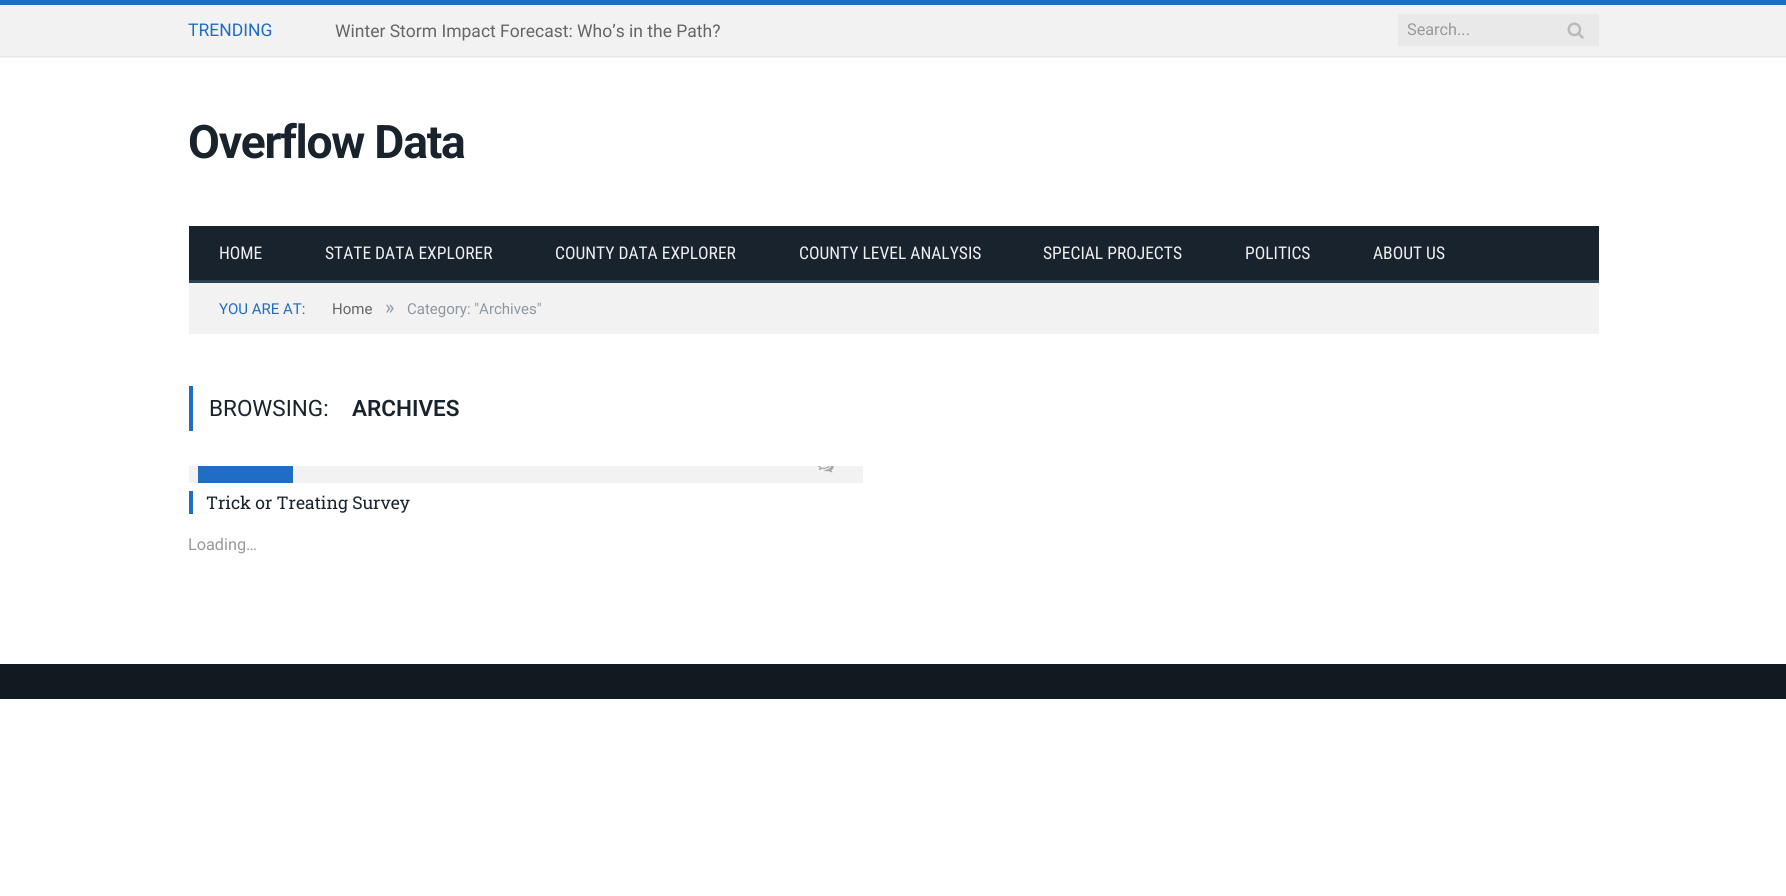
import math
import cairo

surface = cairo.ImageSurface(cairo.FORMAT_RGB24, 1786, 896)
ctx = cairo.Context(surface)
options = cairo.FontOptions()
options.set_hint_metrics(cairo.HINT_METRICS_OFF)
options.set_hint_style(cairo.HINT_STYLE_NONE)
ctx.set_font_options(options)
ctx.set_miter_limit(4)


def spaced_text(x, y, s, letter, word):
    ctx.move_to(x, y)
    for ch in s:
        ctx.show_text(ch)
        ctx.rel_move_to(letter + word * (ch == ' '), 0)


def picture(path, x, y, w, h):
    ctx.save()
    ctx.set_source_surface(cairo.ImageSurface.create_from_png(path), x, y)
    ctx.rectangle(x, y, w, h)
    ctx.fill()
    ctx.restore()


ctx.set_source_rgb(1, 1, 1)
ctx.paint()
ctx.set_source_rgb(0.949, 0.949, 0.949)
ctx.rectangle(0, 5, 1786, 53)
ctx.fill()
ctx.set_source_rgb(0.125, 0.427, 0.773)
ctx.rectangle(0, 0, 1786, 5)
ctx.fill()
ctx.set_source_rgb(0.906, 0.906, 0.906)
ctx.rectangle(0, 56, 1786, 1)
ctx.fill()
ctx.select_font_face("Roboto")
ctx.set_font_size(17.5)
ctx.set_source_rgb(0.125, 0.427, 0.773)
ctx.move_to(188, 36)
ctx.show_text("TRENDING")
ctx.set_source_rgb(0.396, 0.396, 0.396)
ctx.move_to(335, 37)
ctx.show_text("Winter Storm Impact Forecast: Who’s in the Path?")
ctx.set_source_rgb(0.914, 0.914, 0.914)
ctx.rectangle(1398, 14, 201, 32)
ctx.fill()
ctx.save()
ctx.rectangle(1408, 20, 162, 19)
ctx.clip()
ctx.set_font_size(16.25)
ctx.set_source_rgb(0.6, 0.6, 0.6)
ctx.move_to(1407, 35)
ctx.show_text("Search...")
ctx.restore()
picture("img1.png", 1567, 22, 17, 17)
ctx.select_font_face("Roboto", cairo.FONT_SLANT_NORMAL, cairo.FONT_WEIGHT_BOLD)
ctx.set_font_size(46.25)
ctx.set_source_rgb(0.098, 0.137, 0.176)
spaced_text(188, 158, "Overflow Data", -1.25, 0)
ctx.rectangle(189, 226, 1410, 54)
ctx.fill()
ctx.set_source_rgb(0.184, 0.255, 0.329)
ctx.rectangle(189, 280, 1410, 3)
ctx.fill()
ctx.select_font_face("Roboto Condensed")
ctx.set_font_size(17.5)
ctx.set_source_rgb(0.937, 0.937, 0.937)
ctx.move_to(219, 259)
ctx.show_text("HOME")
ctx.move_to(325, 259)
ctx.show_text("STATE DATA EXPLORER")
ctx.move_to(555, 259)
ctx.show_text("COUNTY DATA EXPLORER")
ctx.move_to(799, 259)
ctx.show_text("COUNTY LEVEL ANALYSIS")
ctx.move_to(1043, 259)
ctx.show_text("SPECIAL PROJECTS")
ctx.move_to(1245, 259)
ctx.show_text("POLITICS")
ctx.move_to(1373, 259)
ctx.show_text("ABOUT US")
ctx.set_source_rgb(0.949, 0.949, 0.949)
ctx.rectangle(189, 283, 1410, 51)
ctx.fill()
ctx.select_font_face("Roboto")
ctx.set_font_size(15)
ctx.set_source_rgb(0.125, 0.427, 0.773)
ctx.move_to(219, 314)
ctx.show_text("YOU ARE AT:")
ctx.set_source_rgb(0.396, 0.396, 0.396)
ctx.move_to(332, 314)
ctx.show_text("Home")
ctx.set_font_size(20)
ctx.set_source_rgb(0.553, 0.592, 0.631)
ctx.move_to(385, 314)
ctx.show_text("»")
ctx.set_font_size(15)
ctx.move_to(407, 314)
ctx.show_text("Category: \"Archives\"")
ctx.set_source_rgb(0.125, 0.427, 0.773)
ctx.rectangle(189, 386, 4, 45)
ctx.fill()
ctx.set_font_size(22.5)
ctx.set_source_rgb(0.098, 0.137, 0.176)
ctx.move_to(209, 416)
ctx.show_text("BROWSING:")
ctx.select_font_face("Roboto SemiBold")
ctx.move_to(352, 416)
ctx.show_text("ARCHIVES")
ctx.set_source_rgb(0.949, 0.949, 0.949)
ctx.rectangle(189, 466, 674, 17)
ctx.fill()
picture("img2.png", 818, 466, 16, 7)
ctx.set_source_rgb(0.125, 0.427, 0.773)
ctx.rectangle(198, 466, 95, 17)
ctx.fill()
ctx.rectangle(189, 491, 4, 23)
ctx.fill()
ctx.select_font_face("Roboto Slab")
ctx.set_font_size(17.5)
ctx.set_source_rgb(0.098, 0.137, 0.176)
ctx.move_to(206, 509)
ctx.show_text("Trick or Treating Survey")
ctx.select_font_face("Roboto")
ctx.set_font_size(16.25)
ctx.set_source_rgb(0.6, 0.6, 0.6)
ctx.move_to(188, 550)
ctx.show_text("Loading…")
ctx.set_source_rgb(0.071, 0.102, 0.129)
ctx.rectangle(0, 664, 1786, 35)
ctx.fill()
surface.write_to_png("page.png")
